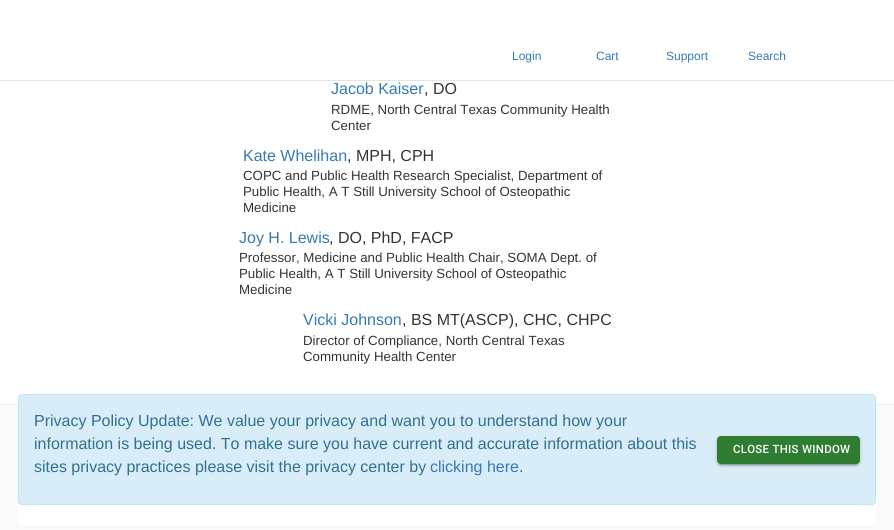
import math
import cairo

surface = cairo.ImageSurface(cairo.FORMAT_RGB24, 894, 530)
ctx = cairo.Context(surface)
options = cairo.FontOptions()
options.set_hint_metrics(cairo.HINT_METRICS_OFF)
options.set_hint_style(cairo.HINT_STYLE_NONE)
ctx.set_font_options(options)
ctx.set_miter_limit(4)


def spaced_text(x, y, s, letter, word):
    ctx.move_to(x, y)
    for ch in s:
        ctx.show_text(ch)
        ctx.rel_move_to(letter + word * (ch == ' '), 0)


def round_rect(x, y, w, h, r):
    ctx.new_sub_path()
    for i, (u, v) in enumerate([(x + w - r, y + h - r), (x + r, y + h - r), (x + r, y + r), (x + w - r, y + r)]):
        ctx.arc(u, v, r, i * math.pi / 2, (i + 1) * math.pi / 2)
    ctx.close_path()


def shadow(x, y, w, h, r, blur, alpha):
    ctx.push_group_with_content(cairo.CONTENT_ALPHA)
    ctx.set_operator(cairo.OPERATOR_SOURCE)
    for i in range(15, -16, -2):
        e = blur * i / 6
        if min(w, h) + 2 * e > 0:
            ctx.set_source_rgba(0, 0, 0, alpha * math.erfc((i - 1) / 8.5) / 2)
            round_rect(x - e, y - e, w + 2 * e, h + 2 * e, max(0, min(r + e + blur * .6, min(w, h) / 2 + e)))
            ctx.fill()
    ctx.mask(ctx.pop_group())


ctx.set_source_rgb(1, 1, 1)
ctx.paint()
ctx.set_source_rgb(0.894, 0.894, 0.894)
ctx.rectangle(0, 80, 894, 1)
ctx.fill()
ctx.select_font_face("Liberation Sans")
ctx.set_font_size(12)
ctx.set_source_rgb(0.2, 0.478, 0.718)
ctx.move_to(512, 60)
ctx.show_text("Login")
ctx.move_to(596, 60)
ctx.show_text("Cart")
ctx.move_to(666, 60)
ctx.show_text("Support")
ctx.move_to(748, 60)
ctx.show_text("Search")
ctx.set_font_size(16)
ctx.move_to(331, 94)
ctx.show_text("Jacob Kaiser")
ctx.set_source_rgb(0.2, 0.2, 0.2)
ctx.move_to(424, 94)
ctx.show_text(", DO")
ctx.set_font_size(13.3)
ctx.move_to(331, 114)
ctx.show_text("RDME, North Central Texas Community Health")
ctx.move_to(331, 130)
ctx.show_text("Center")
ctx.set_font_size(16)
ctx.set_source_rgb(0.2, 0.478, 0.718)
ctx.move_to(243, 161)
ctx.show_text("Kate Whelihan")
ctx.set_source_rgb(0.2, 0.2, 0.2)
ctx.move_to(347, 161)
ctx.show_text(", MPH, CPH")
ctx.set_font_size(13.3)
ctx.move_to(243, 180)
ctx.show_text("COPC and Public Health Research Specialist, Department of")
ctx.move_to(243, 196)
ctx.show_text("Public Health, A T Still University School of Osteopathic")
ctx.move_to(243, 212)
ctx.show_text("Medicine")
ctx.set_font_size(16)
ctx.set_source_rgb(0.2, 0.478, 0.718)
ctx.move_to(239, 243)
ctx.show_text("Joy H. Lewis")
ctx.set_source_rgb(0.2, 0.2, 0.2)
ctx.move_to(329, 243)
ctx.show_text(", DO, PhD, FACP")
ctx.set_font_size(13.3)
ctx.move_to(239, 262)
ctx.show_text("Professor, Medicine and Public Health Chair, SOMA Dept. of")
ctx.move_to(239, 278)
ctx.show_text("Public Health, A T Still University School of Osteopathic")
ctx.move_to(239, 294)
ctx.show_text("Medicine")
ctx.set_font_size(16)
ctx.set_source_rgb(0.2, 0.478, 0.718)
ctx.move_to(303, 325)
ctx.show_text("Vicki Johnson")
ctx.set_source_rgb(0.2, 0.2, 0.2)
ctx.move_to(402, 325)
ctx.show_text(", BS MT(ASCP), CHC, CHPC")
ctx.set_font_size(13.3)
ctx.move_to(303, 345)
ctx.show_text("Director of Compliance, North Central Texas")
ctx.move_to(303, 361)
ctx.show_text("Community Health Center")
ctx.set_source_rgb(0.98, 0.98, 0.98)
ctx.rectangle(0, 405, 894, 125)
ctx.fill()
ctx.set_source_rgb(0.933, 0.933, 0.933)
ctx.rectangle(0, 404, 894, 1)
ctx.fill()
ctx.set_source_rgb(1, 1, 1)
ctx.rectangle(18, 404, 858, 121)
ctx.fill()
ctx.set_source_rgb(0.851, 0.929, 0.969)
round_rect(18.5, 394.5, 857, 110, 3.5)
ctx.fill_preserve()
ctx.set_source_rgb(0.737, 0.91, 0.945)
ctx.set_line_width(1)
ctx.stroke()
ctx.set_font_size(16)
ctx.set_source_rgb(0.192, 0.439, 0.561)
ctx.move_to(34, 426)
ctx.show_text("Privacy Policy Update: We value your privacy and want you to understand how your")
ctx.move_to(34, 449)
ctx.show_text("information is being used. To make sure you have current and accurate information about this")
ctx.move_to(34, 472)
ctx.show_text("sites privacy practices please visit the privacy center by")
ctx.set_source_rgb(0.2, 0.478, 0.718)
ctx.move_to(430, 472)
ctx.show_text("clicking here")
ctx.set_source_rgb(0.192, 0.439, 0.561)
ctx.move_to(519, 472)
ctx.show_text(".")
ctx.set_source_rgb(0, 0, 0)
shadow(717, 437, 143, 28, 4, 2.5, 0.12)
shadow(717, 438, 143, 28, 4, 1, 0.14)
shadow(719, 441, 139, 24, 2, 0.5, 0.2)
ctx.set_source_rgb(0.18, 0.49, 0.196)
round_rect(717, 436, 143, 28, 4)
ctx.fill()
ctx.select_font_face("Roboto Medium")
ctx.set_font_size(11.4)
ctx.set_source_rgb(1, 1, 1)
spaced_text(733, 453, "CLOSE THIS WINDOW", 0.3, 0)
surface.write_to_png("page.png")
